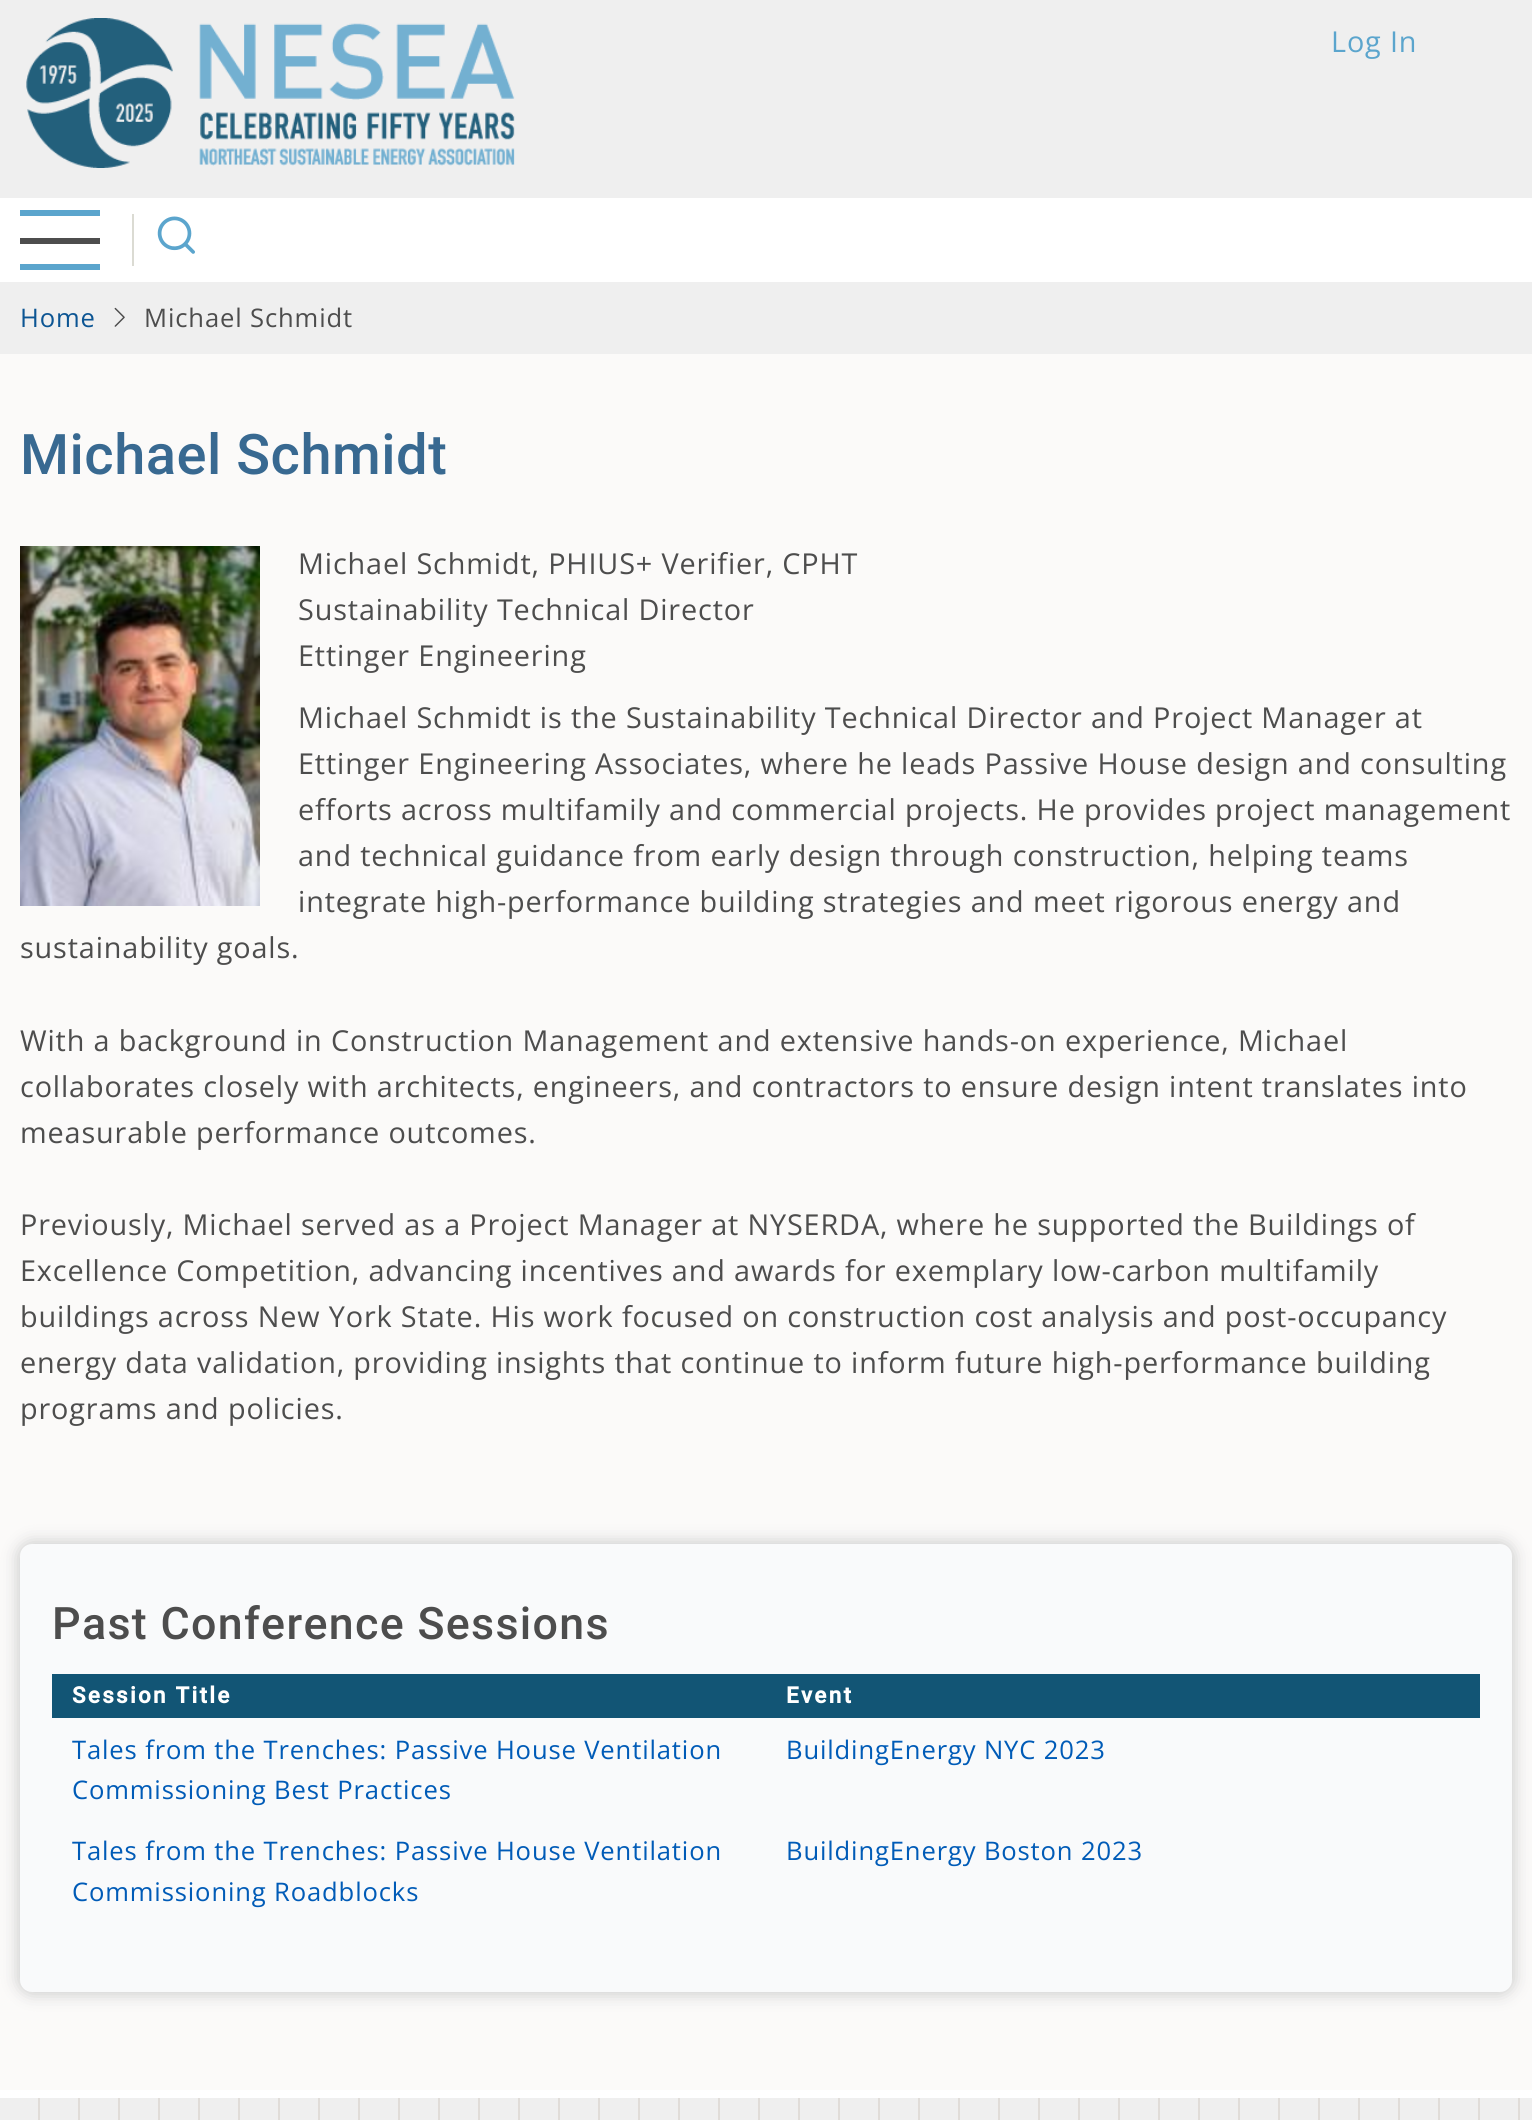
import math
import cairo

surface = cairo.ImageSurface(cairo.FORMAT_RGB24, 1532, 2120)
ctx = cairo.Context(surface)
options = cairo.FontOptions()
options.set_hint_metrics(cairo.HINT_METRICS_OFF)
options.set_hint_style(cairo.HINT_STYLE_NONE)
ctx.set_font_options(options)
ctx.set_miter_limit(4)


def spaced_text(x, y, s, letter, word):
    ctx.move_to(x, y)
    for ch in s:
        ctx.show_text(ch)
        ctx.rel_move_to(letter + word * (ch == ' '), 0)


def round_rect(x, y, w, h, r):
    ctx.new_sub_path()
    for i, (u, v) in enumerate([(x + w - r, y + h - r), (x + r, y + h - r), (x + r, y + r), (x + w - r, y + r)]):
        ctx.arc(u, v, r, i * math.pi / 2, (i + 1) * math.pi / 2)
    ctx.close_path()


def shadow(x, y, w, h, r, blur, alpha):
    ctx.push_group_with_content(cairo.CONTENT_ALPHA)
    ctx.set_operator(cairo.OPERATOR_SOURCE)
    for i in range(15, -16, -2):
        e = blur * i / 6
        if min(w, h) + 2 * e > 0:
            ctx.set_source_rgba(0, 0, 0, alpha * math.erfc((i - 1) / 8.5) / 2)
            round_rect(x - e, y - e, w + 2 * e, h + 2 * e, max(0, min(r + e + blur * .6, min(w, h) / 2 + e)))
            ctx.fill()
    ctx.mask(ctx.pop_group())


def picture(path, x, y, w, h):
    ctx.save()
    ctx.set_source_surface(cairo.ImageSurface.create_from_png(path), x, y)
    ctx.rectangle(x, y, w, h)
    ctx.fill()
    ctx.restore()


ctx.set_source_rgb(0.984, 0.98, 0.976)
ctx.paint()
ctx.set_source_rgb(0.937, 0.937, 0.937)
ctx.rectangle(0, 0, 1532, 198)
ctx.fill()
picture("img1.png", 26, 18, 489, 150)
ctx.select_font_face("Open Sans")
ctx.set_font_size(28.8)
ctx.set_source_rgb(0.357, 0.647, 0.804)
spaced_text(1331, 52, "Log In", 0.86, 0)
ctx.set_source_rgb(1, 1, 1)
ctx.rectangle(0, 198, 1532, 84)
ctx.fill()
ctx.set_source_rgb(0.357, 0.647, 0.804)
ctx.rectangle(20, 210, 80, 6)
ctx.fill()
ctx.set_source_rgb(0.302, 0.302, 0.302)
ctx.rectangle(20, 238, 80, 6)
ctx.fill()
ctx.set_source_rgb(0.357, 0.647, 0.804)
ctx.rectangle(20, 264, 80, 6)
ctx.fill()
ctx.set_source_rgb(0.859, 0.859, 0.827)
ctx.rectangle(132, 214, 2, 52)
ctx.fill()
picture("img2.png", 157, 216, 38, 38)
ctx.set_source_rgb(0.937, 0.937, 0.937)
ctx.rectangle(0, 282, 1532, 72)
ctx.fill()
ctx.set_font_size(25.6)
ctx.set_source_rgb(0.047, 0.333, 0.576)
spaced_text(20, 327, "Home", 0.86, 0)
picture("img3.png", 114, 307, 11, 20)
ctx.set_source_rgb(0.302, 0.302, 0.302)
spaced_text(144, 327, "Michael Schmidt", 0.86, 0)
ctx.select_font_face("Roboto Medium")
ctx.set_font_size(56)
ctx.set_source_rgb(0.22, 0.412, 0.569)
spaced_text(20, 474, "Michael Schmidt", 0.5, 0)
picture("img4.png", 20, 546, 240, 360)
ctx.select_font_face("Open Sans")
ctx.set_font_size(28.8)
ctx.set_source_rgb(0.302, 0.302, 0.302)
spaced_text(298, 574, "Michael Schmidt, PHIUS+ Verifier, CPHT", 0.86, 0)
spaced_text(298, 620, "Sustainability Technical Director", 0.86, 0)
spaced_text(298, 666, "Ettinger Engineering", 0.86, 0)
spaced_text(298, 728, "Michael Schmidt is the Sustainability Technical Director and Project Manager at", 0.86, 0)
spaced_text(298, 774, "Ettinger Engineering Associates, where he leads Passive House design and consulting", 0.86, 0)
spaced_text(298, 820, "efforts across multifamily and commercial projects. He provides project management", 0.86, 0)
spaced_text(298, 866, "and technical guidance from early design through construction, helping teams", 0.86, 0)
spaced_text(298, 912, "integrate high-performance building strategies and meet rigorous energy and", 0.86, 0)
spaced_text(20, 958, "sustainability goals.", 0.86, 0)
spaced_text(20, 1051, "With a background in Construction Management and extensive hands-on experience, Michael", 0.86, 0)
spaced_text(20, 1097, "collaborates closely with architects, engineers, and contractors to ensure design intent translates into", 0.86, 0)
spaced_text(20, 1143, "measurable performance outcomes.", 0.86, 0)
spaced_text(20, 1235, "Previously, Michael served as a Project Manager at NYSERDA, where he supported the Buildings of", 0.86, 0)
spaced_text(20, 1281, "Excellence Competition, advancing incentives and awards for exemplary low-carbon multifamily", 0.86, 0)
spaced_text(20, 1327, "buildings across New York State. His work focused on construction cost analysis and post-occupancy", 0.86, 0)
spaced_text(20, 1373, "energy data validation, providing insights that continue to inform future high-performance building", 0.86, 0)
spaced_text(20, 1419, "programs and policies.", 0.86, 0)
ctx.set_source_rgb(0.8, 0.8, 0.8)
shadow(18, 1542, 1496, 452, 14, 8, 1)
ctx.set_source_rgb(0.976, 0.98, 0.984)
round_rect(20, 1544, 1492, 448, 12)
ctx.fill()
ctx.select_font_face("Roboto Medium")
ctx.set_font_size(44.75)
ctx.set_source_rgb(0.302, 0.302, 0.302)
spaced_text(52, 1639, "Past Conference Sessions", 1.3, 0)
ctx.set_source_rgb(0.071, 0.333, 0.459)
ctx.rectangle(52, 1674, 1428, 44)
ctx.fill()
ctx.select_font_face("Roboto", cairo.FONT_SLANT_NORMAL, cairo.FONT_WEIGHT_BOLD)
ctx.set_font_size(22.5)
ctx.set_source_rgb(1, 1, 1)
spaced_text(72, 1703, "Session Title", 2.25, 0)
spaced_text(786, 1703, "Event", 2.25, 0)
ctx.select_font_face("Open Sans")
ctx.set_font_size(25.6)
ctx.set_source_rgb(0, 0.357, 0.718)
spaced_text(72, 1759, "Tales from the Trenches: Passive House Ventilation", 0.86, 0)
spaced_text(72, 1799, "Commissioning Best Practices", 0.86, 0)
spaced_text(786, 1759, "BuildingEnergy NYC 2023", 0.86, 0)
spaced_text(72, 1860, "Tales from the Trenches: Passive House Ventilation", 0.86, 0)
spaced_text(72, 1901, "Commissioning Roadblocks", 0.86, 0)
spaced_text(786, 1860, "BuildingEnergy Boston 2023", 0.86, 0)
ctx.set_source_rgb(0.937, 0.937, 0.937)
ctx.rectangle(0, 2098, 1532, 22)
ctx.fill()
picture("img5.png", 38, 2098, 1482, 22)
ctx.set_source_rgb(1, 1, 1)
ctx.rectangle(0, 2090, 1532, 8)
ctx.fill()
surface.write_to_png("page.png")
